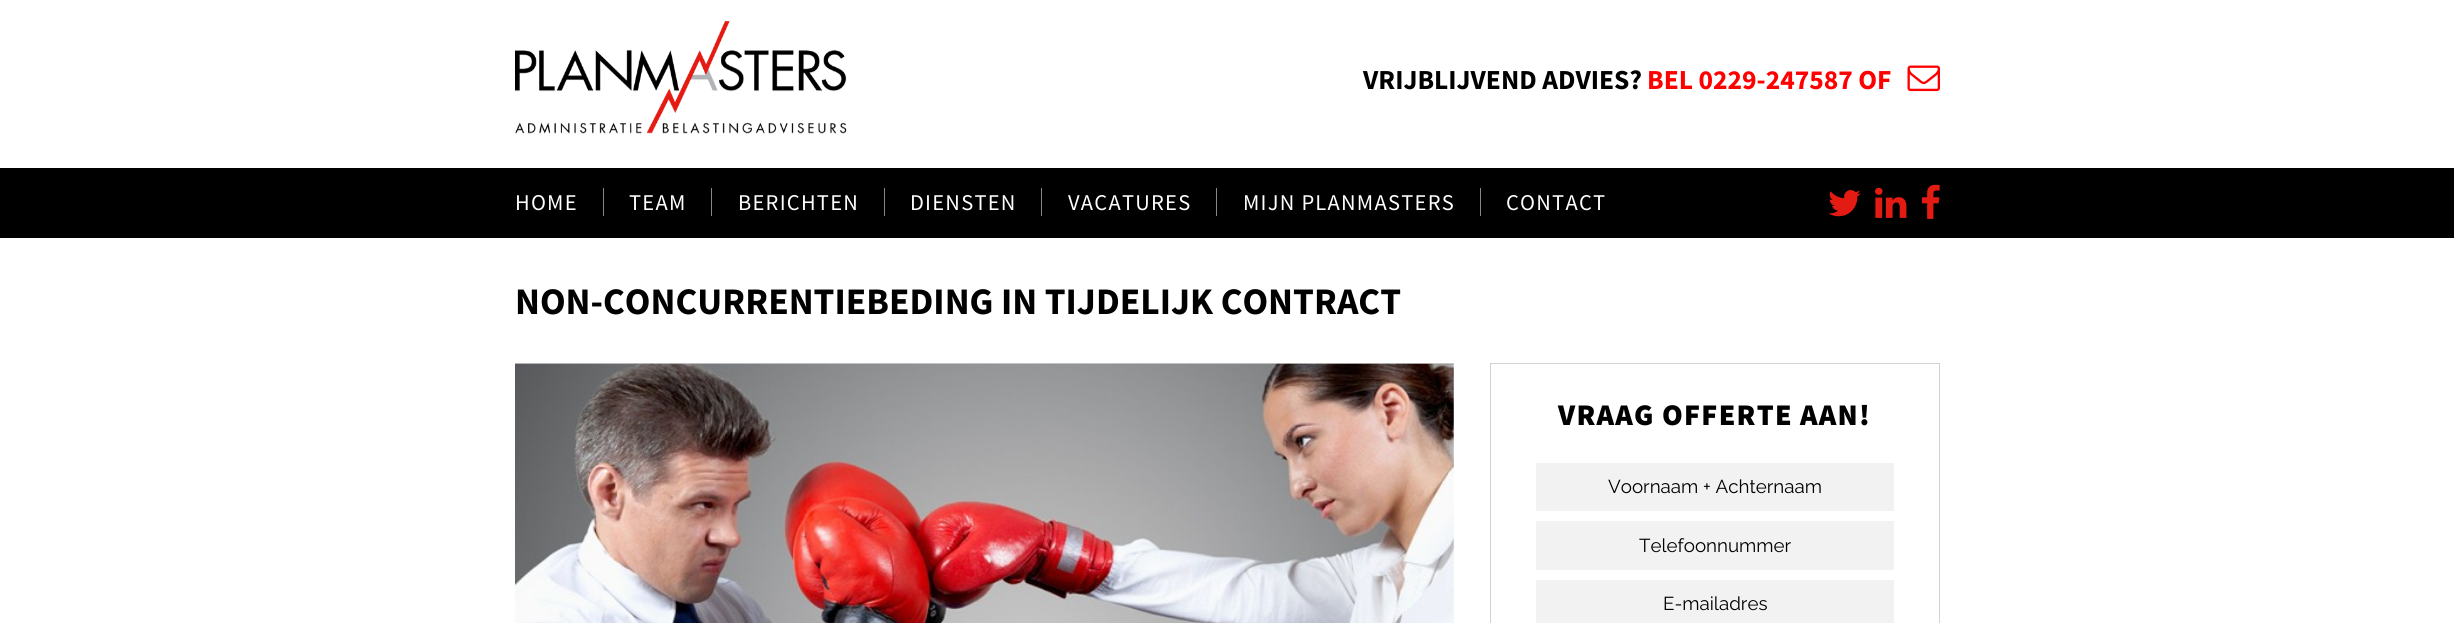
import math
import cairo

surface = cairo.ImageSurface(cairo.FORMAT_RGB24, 2454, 623)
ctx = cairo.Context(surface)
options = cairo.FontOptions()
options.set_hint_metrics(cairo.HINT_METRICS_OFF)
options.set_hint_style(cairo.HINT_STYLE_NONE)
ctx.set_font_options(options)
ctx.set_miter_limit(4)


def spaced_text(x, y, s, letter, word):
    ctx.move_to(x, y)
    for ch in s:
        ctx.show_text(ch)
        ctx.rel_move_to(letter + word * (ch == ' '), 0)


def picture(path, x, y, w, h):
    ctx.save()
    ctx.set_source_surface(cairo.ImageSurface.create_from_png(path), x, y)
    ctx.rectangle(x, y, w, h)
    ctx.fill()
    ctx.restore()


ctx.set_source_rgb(1, 1, 1)
ctx.paint()
picture("img1.png", 515, 21, 332, 113)
ctx.select_font_face("Source Sans Pro", cairo.FONT_SLANT_NORMAL, cairo.FONT_WEIGHT_BOLD)
ctx.set_font_size(27.5)
ctx.set_source_rgb(0, 0, 0)
ctx.move_to(1363, 89)
ctx.show_text("VRIJBLIJVEND ADVIES?")
ctx.set_source_rgb(1, 0, 0)
ctx.move_to(1647, 89)
ctx.show_text("BEL 0229-247587 OF")
picture("img2.png", 1907, 65, 33, 27)
ctx.set_source_rgb(0, 0, 0)
ctx.rectangle(0, 168, 2454, 70)
ctx.fill()
ctx.select_font_face("Source Sans Pro")
ctx.set_font_size(22.5)
ctx.set_source_rgb(1, 1, 1)
spaced_text(515, 210, "HOME", 1.25, 0)
spaced_text(629, 210, "TEAM", 1.25, 0)
ctx.set_source_rgb(0.529, 0.529, 0.529)
ctx.rectangle(603, 188, 1, 28)
ctx.fill()
ctx.set_source_rgb(1, 1, 1)
spaced_text(738, 210, "BERICHTEN", 1.25, 0)
ctx.set_source_rgb(0.529, 0.529, 0.529)
ctx.rectangle(711, 188, 1, 28)
ctx.fill()
ctx.set_source_rgb(1, 1, 1)
spaced_text(910, 210, "DIENSTEN", 1.25, 0)
ctx.set_source_rgb(0.529, 0.529, 0.529)
ctx.rectangle(884, 188, 1, 28)
ctx.fill()
ctx.set_source_rgb(1, 1, 1)
spaced_text(1068, 210, "VACATURES", 1.25, 0)
ctx.set_source_rgb(0.529, 0.529, 0.529)
ctx.rectangle(1041, 188, 1, 28)
ctx.fill()
ctx.set_source_rgb(1, 1, 1)
spaced_text(1243, 210, "MIJN PLANMASTERS", 1.25, 0)
ctx.set_source_rgb(0.529, 0.529, 0.529)
ctx.rectangle(1216, 188, 1, 28)
ctx.fill()
ctx.set_source_rgb(1, 1, 1)
spaced_text(1506, 210, "CONTACT", 1.25, 0)
ctx.set_source_rgb(0.529, 0.529, 0.529)
ctx.rectangle(1480, 188, 1, 28)
ctx.fill()
picture("img3.png", 1828, 190, 33, 27)
picture("img4.png", 1875, 187, 32, 31)
picture("img5.png", 1921, 184, 19, 35)
ctx.select_font_face("Source Sans Pro", cairo.FONT_SLANT_NORMAL, cairo.FONT_WEIGHT_BOLD)
ctx.set_font_size(37.5)
ctx.set_source_rgb(0, 0, 0)
ctx.move_to(515, 314)
ctx.show_text("NON-CONCURRENTIEBEDING IN TIJDELIJK CONTRACT")
ctx.set_source_rgb(0.824, 0.824, 0.824)
ctx.rectangle(515, 363, 939, 1)
ctx.fill()
picture("img6.png", 515, 363, 939, 260)
ctx.rectangle(1490.5, 363.5, 449, 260)
ctx.set_line_width(1)
ctx.stroke()
ctx.select_font_face("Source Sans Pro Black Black")
ctx.set_font_size(30)
ctx.set_source_rgb(0, 0, 0)
spaced_text(1558, 425, "VRAAG OFFERTE AAN!", 1.25, 0)
ctx.set_source_rgb(0.949, 0.949, 0.949)
ctx.rectangle(1536, 463, 358, 48)
ctx.fill()
ctx.select_font_face("Raleway")
ctx.set_font_size(18.75)
ctx.set_source_rgb(0, 0, 0)
ctx.move_to(1608, 493)
ctx.show_text("Voornaam + Achternaam")
ctx.set_source_rgb(0.949, 0.949, 0.949)
ctx.rectangle(1536, 521, 358, 49)
ctx.fill()
ctx.set_source_rgb(0, 0, 0)
ctx.move_to(1639, 552)
ctx.show_text("Telefoonnummer")
ctx.set_source_rgb(0.949, 0.949, 0.949)
ctx.rectangle(1536, 580, 358, 43)
ctx.fill()
ctx.set_source_rgb(0, 0, 0)
ctx.move_to(1663, 610)
ctx.show_text("E-mailadres")
surface.write_to_png("page.png")
